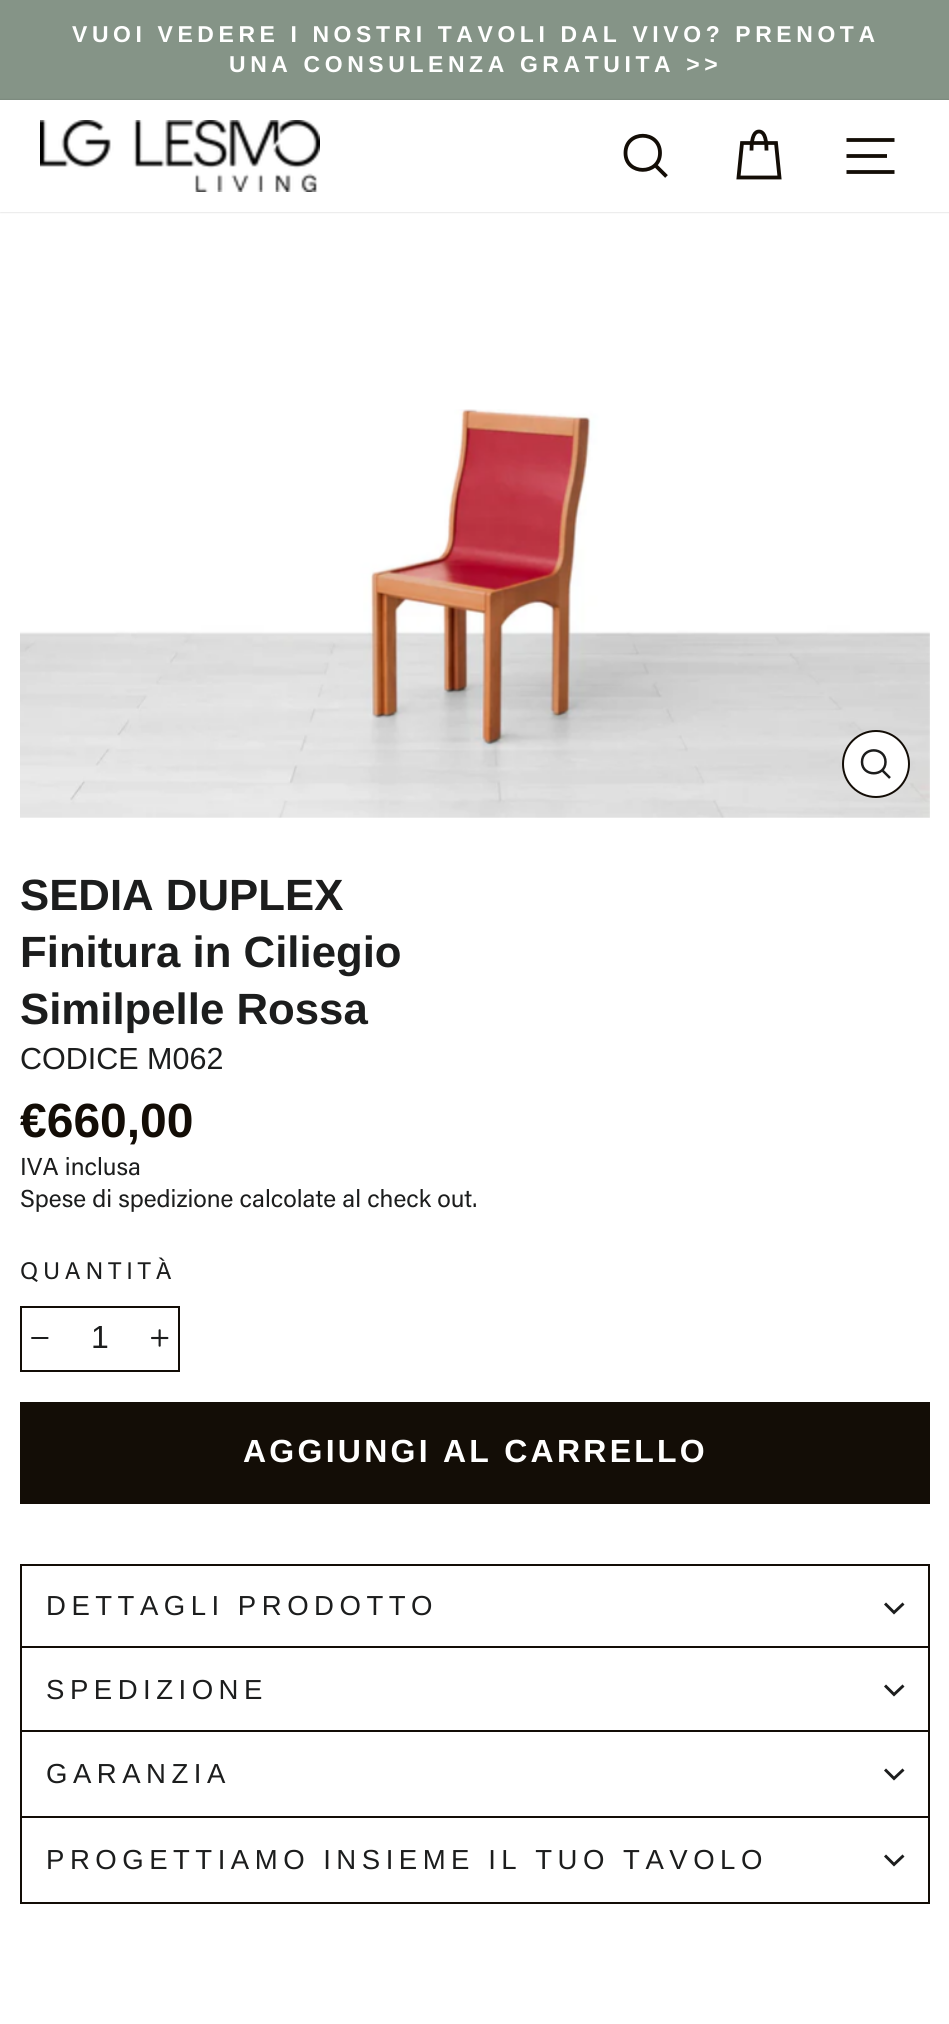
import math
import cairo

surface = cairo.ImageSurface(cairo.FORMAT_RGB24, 949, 2024)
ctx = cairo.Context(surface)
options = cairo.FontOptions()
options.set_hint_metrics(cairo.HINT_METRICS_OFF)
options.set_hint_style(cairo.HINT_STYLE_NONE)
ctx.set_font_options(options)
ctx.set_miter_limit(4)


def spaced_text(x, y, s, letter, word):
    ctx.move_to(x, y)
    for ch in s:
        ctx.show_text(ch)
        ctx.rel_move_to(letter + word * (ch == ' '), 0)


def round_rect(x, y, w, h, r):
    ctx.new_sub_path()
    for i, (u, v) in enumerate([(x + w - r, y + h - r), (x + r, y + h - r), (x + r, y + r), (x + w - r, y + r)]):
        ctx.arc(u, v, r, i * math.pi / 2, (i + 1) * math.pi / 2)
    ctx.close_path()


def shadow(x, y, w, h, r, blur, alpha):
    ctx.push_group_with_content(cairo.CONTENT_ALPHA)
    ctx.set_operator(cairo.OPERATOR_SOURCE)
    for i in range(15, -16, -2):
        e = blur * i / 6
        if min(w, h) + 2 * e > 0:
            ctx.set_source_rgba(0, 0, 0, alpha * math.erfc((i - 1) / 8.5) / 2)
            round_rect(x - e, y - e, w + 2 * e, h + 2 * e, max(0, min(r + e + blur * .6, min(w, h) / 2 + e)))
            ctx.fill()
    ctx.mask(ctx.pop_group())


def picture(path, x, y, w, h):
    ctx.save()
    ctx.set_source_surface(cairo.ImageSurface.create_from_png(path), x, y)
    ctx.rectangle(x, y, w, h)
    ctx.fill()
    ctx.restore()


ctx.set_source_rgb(1, 1, 1)
ctx.paint()
ctx.set_source_rgb(0.522, 0.58, 0.529)
ctx.rectangle(0, 0, 949, 100)
ctx.fill()
ctx.select_font_face("Liberation Sans", cairo.FONT_SLANT_NORMAL, cairo.FONT_WEIGHT_BOLD)
ctx.set_font_size(22.95)
ctx.set_source_rgb(1, 1, 1)
spaced_text(72, 42, "VUOI VEDERE I NOSTRI TAVOLI DAL VIVO? PRENOTA", 4.6, 0)
spaced_text(229, 72, "UNA CONSULENZA GRATUITA >>", 4.6, 0)
ctx.save()
ctx.set_fill_rule(cairo.FILL_RULE_EVEN_ODD)
ctx.new_path()
ctx.move_to(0, 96)
ctx.line_to(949, 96)
ctx.line_to(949, 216)
ctx.line_to(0, 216)
ctx.close_path()
ctx.move_to(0, 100)
ctx.line_to(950, 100)
ctx.line_to(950, 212)
ctx.line_to(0, 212)
ctx.close_path()
ctx.clip()
ctx.set_source_rgb(0, 0, 0)
shadow(0, 100, 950, 112, 0, 1, 0.2)
ctx.restore()
picture("img1.png", 40, 120, 280, 72)
ctx.new_path()
ctx.move_to(660, 153)
ctx.curve_to(660, 175.5, 625.5, 175.5, 625.5, 153)
ctx.curve_to(625.5, 130, 660, 130, 660, 153)
ctx.close_path()
ctx.move_to(666.5, 176.5)
ctx.line_to(655.5, 165.5)
ctx.set_source_rgb(0.075, 0.051, 0.027)
ctx.set_line_width(3.8)
ctx.stroke()
ctx.new_path()
ctx.move_to(751.5, 150.5)
ctx.curve_to(751.5, 135.5, 755, 131.5, 759, 131.5)
ctx.curve_to(763, 131.5, 766.5, 135.5, 766.5, 150.5)
ctx.move_to(742, 143)
ctx.line_to(776, 143)
ctx.line_to(779.5, 177.5)
ctx.line_to(738.5, 177.5)
ctx.close_path()
ctx.stroke()
ctx.new_path()
ctx.move_to(846.5, 140)
ctx.line_to(894.5, 140)
ctx.move_to(846.5, 156)
ctx.line_to(887, 156)
ctx.move_to(846.5, 172)
ctx.line_to(894.5, 172)
ctx.stroke()
picture("img2.png", 20, 409, 910, 409)
ctx.set_source_rgb(1, 1, 1)
ctx.arc(876, 764, 33, 0, 2 * math.pi)
ctx.fill_preserve()
ctx.set_source_rgb(0.075, 0.051, 0.027)
ctx.set_line_width(2)
ctx.stroke()
ctx.new_path()
ctx.move_to(885.5, 762)
ctx.curve_to(885.5, 777, 862, 777, 862, 762)
ctx.curve_to(862, 746.5, 885.5, 746.5, 885.5, 762)
ctx.close_path()
ctx.move_to(890, 778)
ctx.line_to(882, 770)
ctx.set_source_rgb(0.11, 0.114, 0.114)
ctx.set_line_width(2.5)
ctx.stroke()
ctx.set_font_size(43.75)
ctx.move_to(20, 910)
ctx.show_text("SEDIA DUPLEX")
ctx.move_to(20, 967)
ctx.show_text("Finitura in Ciliegio")
ctx.move_to(20, 1024)
ctx.show_text("Similpelle Rossa")
ctx.select_font_face("Liberation Sans")
ctx.set_font_size(30.5)
ctx.move_to(20, 1069)
ctx.show_text("CODICE M062")
ctx.select_font_face("Liberation Sans", cairo.FONT_SLANT_NORMAL, cairo.FONT_WEIGHT_BOLD)
ctx.set_font_size(48)
ctx.set_source_rgb(0.075, 0.051, 0.027)
ctx.move_to(20, 1137)
ctx.show_text("€660,00")
ctx.select_font_face("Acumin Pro")
ctx.set_font_size(24.5)
ctx.set_source_rgb(0.11, 0.114, 0.114)
ctx.move_to(20, 1175)
ctx.show_text("IVA inclusa")
ctx.move_to(20, 1207)
ctx.show_text("Spese di spedizione calcolate al check out.")
ctx.set_font_size(24)
spaced_text(20, 1279, "QUANTITÀ", 4.75, 0)
ctx.rectangle(21, 1307, 158, 64)
ctx.set_source_rgb(0.075, 0.051, 0.027)
ctx.set_line_width(2)
ctx.stroke()
picture("img3.png", 31, 1337, 18, 2)
ctx.select_font_face("Liberation Sans")
ctx.set_font_size(32)
ctx.set_source_rgb(0.11, 0.114, 0.114)
ctx.move_to(91, 1348)
ctx.show_text("1")
picture("img4.png", 151, 1329, 18, 18)
ctx.set_source_rgb(0.075, 0.051, 0.027)
ctx.rectangle(20, 1402, 910, 102)
ctx.fill()
ctx.select_font_face("Liberation Sans", cairo.FONT_SLANT_NORMAL, cairo.FONT_WEIGHT_BOLD)
ctx.set_source_rgb(1, 1, 1)
spaced_text(243, 1462, "AGGIUNGI AL CARRELLO", 3.25, 0)
ctx.set_source_rgb(0.075, 0.051, 0.027)
ctx.rectangle(20, 1902, 910, 2)
ctx.fill()
ctx.rectangle(20, 1564, 910, 2)
ctx.fill()
ctx.rectangle(928, 1564, 2, 84)
ctx.fill()
ctx.rectangle(20, 1564, 2, 84)
ctx.fill()
ctx.select_font_face("Liberation Sans")
ctx.set_font_size(27.55)
ctx.set_source_rgb(0.11, 0.114, 0.114)
spaced_text(46, 1615, "DETTAGLI PRODOTTO", 5.5, 0)
ctx.new_path()
ctx.move_to(885, 1603.5)
ctx.line_to(894, 1612.5)
ctx.line_to(903.5, 1603.5)
ctx.set_line_width(2.9)
ctx.stroke()
ctx.set_source_rgb(0.075, 0.051, 0.027)
ctx.rectangle(20, 1646, 910, 2)
ctx.fill()
ctx.rectangle(928, 1646, 2, 86)
ctx.fill()
ctx.rectangle(20, 1646, 2, 86)
ctx.fill()
ctx.set_source_rgb(0.11, 0.114, 0.114)
spaced_text(46, 1699, "SPEDIZIONE", 5.5, 0)
ctx.new_path()
ctx.move_to(885, 1685.5)
ctx.line_to(894, 1694.5)
ctx.line_to(903.5, 1685.5)
ctx.stroke()
ctx.set_source_rgb(0.075, 0.051, 0.027)
ctx.rectangle(20, 1730, 910, 2)
ctx.fill()
ctx.rectangle(928, 1730, 2, 86)
ctx.fill()
ctx.rectangle(20, 1730, 2, 86)
ctx.fill()
ctx.set_source_rgb(0.11, 0.114, 0.114)
spaced_text(46, 1783, "GARANZIA", 5.5, 0)
ctx.new_path()
ctx.move_to(885, 1769.5)
ctx.line_to(894, 1778.5)
ctx.line_to(903.5, 1769.5)
ctx.stroke()
ctx.set_source_rgb(0.075, 0.051, 0.027)
ctx.rectangle(20, 1816, 910, 2)
ctx.fill()
ctx.rectangle(928, 1816, 2, 86)
ctx.fill()
ctx.rectangle(20, 1816, 2, 86)
ctx.fill()
ctx.set_source_rgb(0.11, 0.114, 0.114)
spaced_text(46, 1869, "PROGETTIAMO INSIEME IL TUO TAVOLO", 5.5, 0)
ctx.new_path()
ctx.move_to(885, 1855.5)
ctx.line_to(894, 1864.5)
ctx.line_to(903.5, 1855.5)
ctx.stroke()
surface.write_to_png("page.png")
